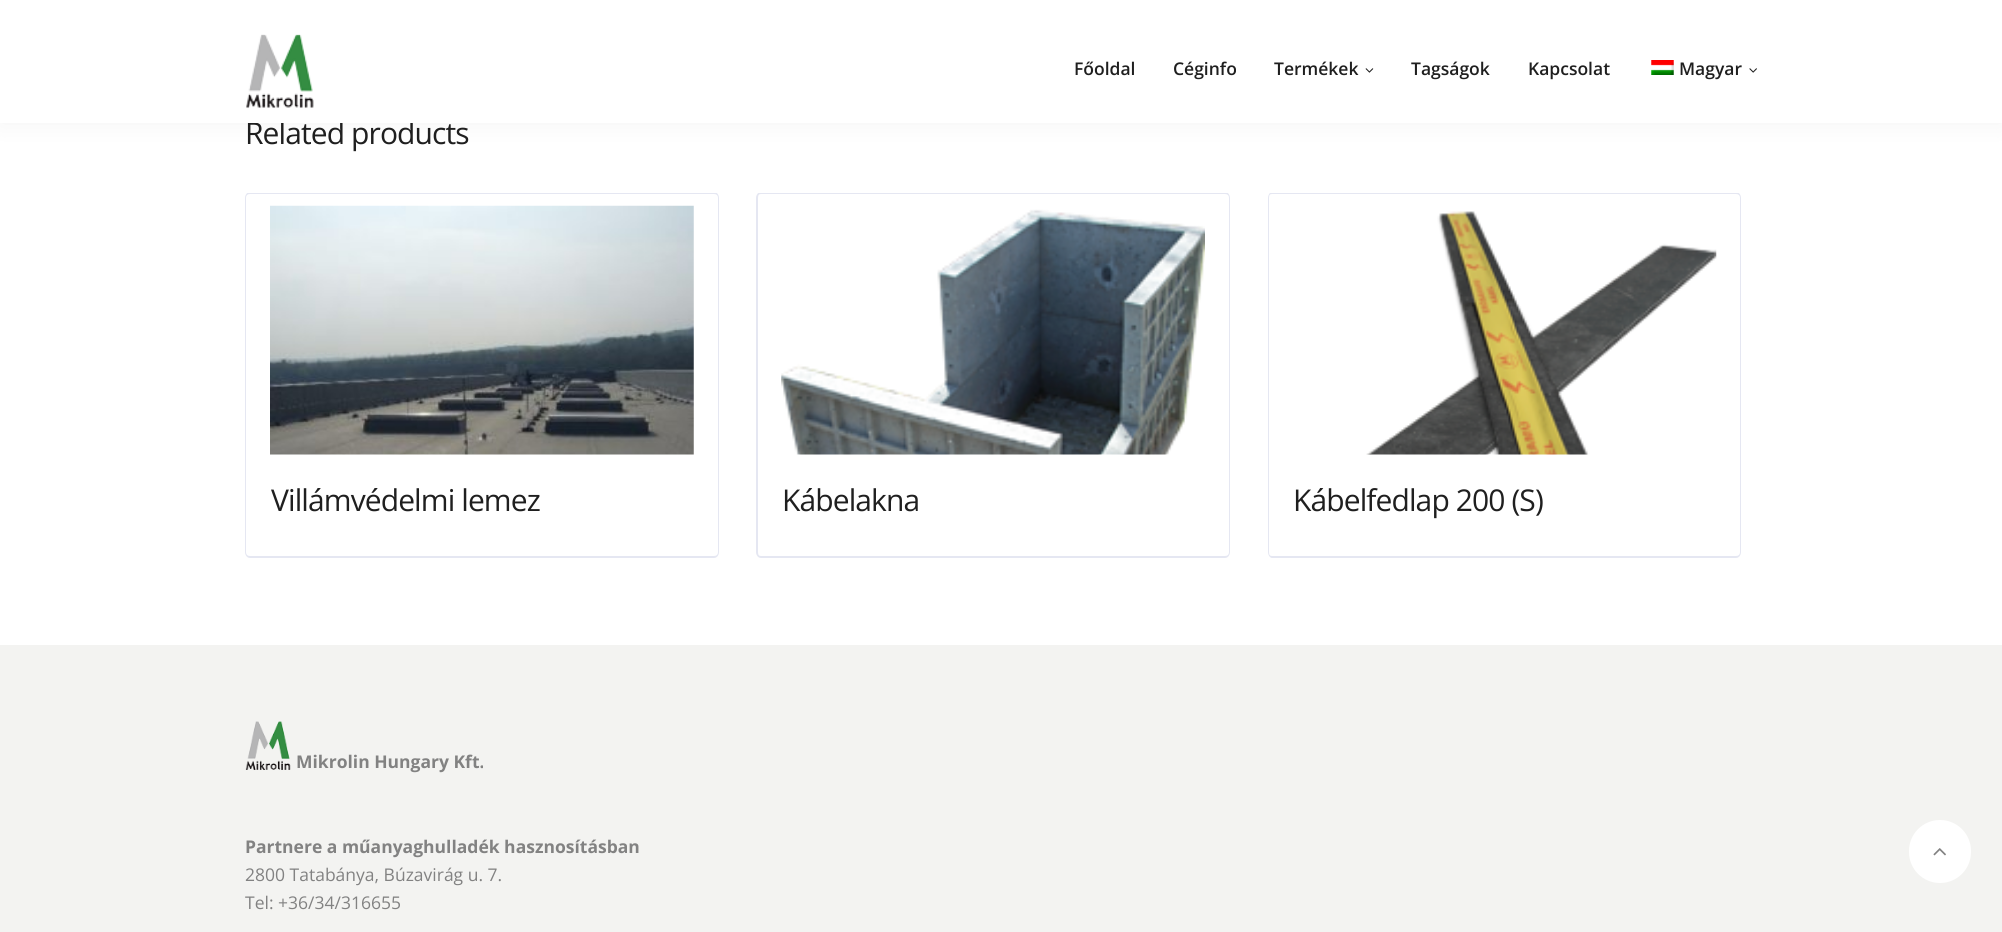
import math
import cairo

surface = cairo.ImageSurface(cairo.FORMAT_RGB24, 2002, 932)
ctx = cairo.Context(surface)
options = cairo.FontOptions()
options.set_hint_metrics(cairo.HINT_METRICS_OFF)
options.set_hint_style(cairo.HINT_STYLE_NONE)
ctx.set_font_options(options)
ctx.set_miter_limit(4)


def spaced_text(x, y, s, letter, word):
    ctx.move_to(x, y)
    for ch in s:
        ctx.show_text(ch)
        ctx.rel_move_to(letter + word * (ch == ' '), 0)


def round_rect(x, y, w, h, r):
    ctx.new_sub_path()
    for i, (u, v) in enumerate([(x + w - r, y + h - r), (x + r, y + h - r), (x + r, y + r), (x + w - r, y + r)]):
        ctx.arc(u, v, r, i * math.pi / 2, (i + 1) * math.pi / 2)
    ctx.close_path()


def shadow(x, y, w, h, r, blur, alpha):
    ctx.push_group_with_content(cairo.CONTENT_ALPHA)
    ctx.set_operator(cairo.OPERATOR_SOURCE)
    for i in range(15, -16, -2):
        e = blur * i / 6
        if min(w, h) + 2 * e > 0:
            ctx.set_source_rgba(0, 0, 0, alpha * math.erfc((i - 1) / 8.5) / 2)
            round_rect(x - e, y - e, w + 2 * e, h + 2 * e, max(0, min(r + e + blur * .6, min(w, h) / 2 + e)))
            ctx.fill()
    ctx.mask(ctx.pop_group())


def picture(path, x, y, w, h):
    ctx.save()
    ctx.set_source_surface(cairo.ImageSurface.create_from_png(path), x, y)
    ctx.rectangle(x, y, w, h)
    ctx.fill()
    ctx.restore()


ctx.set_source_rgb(1, 1, 1)
ctx.paint()
ctx.set_source_rgb(0, 0, 0)
shadow(0, 0, 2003, 123, 0, 12.5, 0.05)
ctx.select_font_face("Open Sans")
ctx.set_font_size(30)
ctx.set_source_rgb(0.122, 0.122, 0.122)
spaced_text(245, 144, "Related products", -0.9, 0)
ctx.set_source_rgb(1, 1, 1)
ctx.rectangle(0, 0, 2002, 123)
ctx.fill()
picture("img1.png", 246, 34, 68, 75)
ctx.select_font_face("Open Sans SemiBold")
ctx.set_font_size(17.5)
ctx.set_source_rgb(0.122, 0.122, 0.122)
ctx.move_to(1074, 75)
ctx.show_text("Főoldal")
ctx.move_to(1173, 75)
ctx.show_text("Céginfo")
ctx.move_to(1274, 75)
ctx.show_text("Termékek")
picture("img2.png", 1365, 68, 9, 5)
ctx.move_to(1411, 75)
ctx.show_text("Tagságok")
ctx.move_to(1528, 75)
ctx.show_text("Kapcsolat")
picture("img3.png", 1651, 60, 23, 15)
ctx.move_to(1679, 75)
ctx.show_text("Magyar")
picture("img4.png", 1749, 68, 8, 5)
ctx.save()
ctx.rectangle(245, 193, 474, 262)
ctx.clip()
ctx.set_source_rgb(0.898, 0.906, 0.949)
ctx.set_fill_rule(cairo.FILL_RULE_EVEN_ODD)
ctx.new_path()
ctx.move_to(250, 192)
ctx.line_to(714, 192)
ctx.curve_to(717, 192, 719, 195, 719, 198)
ctx.line_to(719, 455)
ctx.line_to(245, 455)
ctx.line_to(245, 198)
ctx.curve_to(245, 195, 247, 192, 250, 192)
ctx.close_path()
ctx.move_to(250, 194)
ctx.line_to(714, 194)
ctx.curve_to(716, 194, 718, 195, 718, 198)
ctx.line_to(718, 455)
ctx.line_to(246, 455)
ctx.line_to(246, 198)
ctx.curve_to(246, 195, 248, 194, 250, 194)
ctx.close_path()
ctx.fill()
ctx.restore()
picture("img5.png", 270, 205, 424, 250)
ctx.set_source_rgb(0.898, 0.906, 0.949)
ctx.set_fill_rule(cairo.FILL_RULE_EVEN_ODD)
ctx.new_path()
ctx.move_to(245, 455)
ctx.line_to(719, 455)
ctx.line_to(719, 552)
ctx.curve_to(719, 555, 717, 558, 714, 558)
ctx.line_to(250, 558)
ctx.curve_to(247, 558, 245, 555, 245, 552)
ctx.close_path()
ctx.move_to(246, 455)
ctx.line_to(718, 455)
ctx.line_to(718, 552)
ctx.curve_to(718, 555, 716, 556, 714, 556)
ctx.line_to(250, 556)
ctx.curve_to(248, 556, 246, 555, 246, 552)
ctx.close_path()
ctx.fill()
ctx.select_font_face("Open Sans")
ctx.set_font_size(30)
ctx.set_source_rgb(0.122, 0.122, 0.122)
spaced_text(271, 511, "Villámvédelmi lemez", -0.9, 0)
ctx.save()
ctx.set_fill_rule(cairo.FILL_RULE_WINDING)
ctx.rectangle(756, 193, 474, 262)
ctx.clip()
ctx.set_source_rgb(0.898, 0.906, 0.949)
ctx.set_fill_rule(cairo.FILL_RULE_EVEN_ODD)
ctx.new_path()
ctx.move_to(761, 192)
ctx.line_to(1225, 192)
ctx.curve_to(1228, 192, 1230, 195, 1230, 198)
ctx.line_to(1230, 455)
ctx.line_to(756, 455)
ctx.line_to(756, 198)
ctx.curve_to(756, 195, 758, 192, 761, 192)
ctx.close_path()
ctx.move_to(761, 194)
ctx.line_to(1225, 194)
ctx.curve_to(1227, 194, 1229, 195, 1229, 198)
ctx.line_to(1229, 455)
ctx.line_to(758, 455)
ctx.line_to(758, 198)
ctx.curve_to(758, 195, 759, 194, 761, 194)
ctx.close_path()
ctx.fill()
ctx.restore()
picture("img6.png", 781, 209, 424, 246)
ctx.set_source_rgb(0.898, 0.906, 0.949)
ctx.new_path()
ctx.move_to(756, 455)
ctx.line_to(1230, 455)
ctx.line_to(1230, 552)
ctx.curve_to(1230, 555, 1228, 558, 1225, 558)
ctx.line_to(761, 558)
ctx.curve_to(758, 558, 756, 555, 756, 552)
ctx.close_path()
ctx.move_to(758, 455)
ctx.line_to(1229, 455)
ctx.line_to(1229, 552)
ctx.curve_to(1229, 555, 1227, 556, 1225, 556)
ctx.line_to(761, 556)
ctx.curve_to(759, 556, 758, 555, 758, 552)
ctx.close_path()
ctx.fill()
ctx.set_source_rgb(0.122, 0.122, 0.122)
spaced_text(782, 511, "Kábelakna", -0.9, 0)
ctx.save()
ctx.set_fill_rule(cairo.FILL_RULE_WINDING)
ctx.rectangle(1268, 193, 473, 262)
ctx.clip()
ctx.set_source_rgb(0.898, 0.906, 0.949)
ctx.set_fill_rule(cairo.FILL_RULE_EVEN_ODD)
ctx.new_path()
ctx.move_to(1272, 192)
ctx.line_to(1736, 192)
ctx.curve_to(1739, 192, 1741, 195, 1741, 198)
ctx.line_to(1741, 455)
ctx.line_to(1268, 455)
ctx.line_to(1268, 198)
ctx.curve_to(1268, 195, 1270, 192, 1272, 192)
ctx.close_path()
ctx.move_to(1272, 194)
ctx.line_to(1736, 194)
ctx.curve_to(1738, 194, 1740, 195, 1740, 198)
ctx.line_to(1740, 455)
ctx.line_to(1269, 455)
ctx.line_to(1269, 198)
ctx.curve_to(1269, 195, 1270, 194, 1272, 194)
ctx.close_path()
ctx.fill()
ctx.restore()
picture("img7.png", 1366, 211, 351, 244)
ctx.set_source_rgb(0.898, 0.906, 0.949)
ctx.new_path()
ctx.move_to(1268, 455)
ctx.line_to(1741, 455)
ctx.line_to(1741, 552)
ctx.curve_to(1741, 555, 1739, 558, 1736, 558)
ctx.line_to(1272, 558)
ctx.curve_to(1270, 558, 1268, 555, 1268, 552)
ctx.close_path()
ctx.move_to(1269, 455)
ctx.line_to(1740, 455)
ctx.line_to(1740, 552)
ctx.curve_to(1740, 555, 1738, 556, 1736, 556)
ctx.line_to(1272, 556)
ctx.curve_to(1270, 556, 1269, 555, 1269, 552)
ctx.close_path()
ctx.fill()
ctx.set_source_rgb(0.122, 0.122, 0.122)
spaced_text(1293, 511, "Kábelfedlap 200 (S)", -0.9, 0)
ctx.set_source_rgb(0.953, 0.953, 0.945)
ctx.rectangle(0, 645, 2002, 287)
ctx.fill()
picture("img8.png", 245, 721, 46, 49)
ctx.select_font_face("Open Sans", cairo.FONT_SLANT_NORMAL, cairo.FONT_WEIGHT_BOLD)
ctx.set_font_size(17.5)
ctx.set_source_rgb(0.51, 0.51, 0.51)
ctx.move_to(296, 768)
ctx.show_text("Mikrolin Hungary Kft.")
ctx.move_to(245, 853)
ctx.show_text("Partnere a műanyaghulladék hasznosításban")
ctx.select_font_face("Open Sans")
ctx.move_to(245, 881)
ctx.show_text("2800 Tatabánya, Búzavirág u. 7.")
ctx.move_to(245, 909)
ctx.show_text("Tel: +36/34/316655")
ctx.set_source_rgb(1, 1, 1)
round_rect(1909, 820, 62, 63, 31)
ctx.fill()
picture("img9.png", 1933, 848, 13, 8)
surface.write_to_png("page.png")
